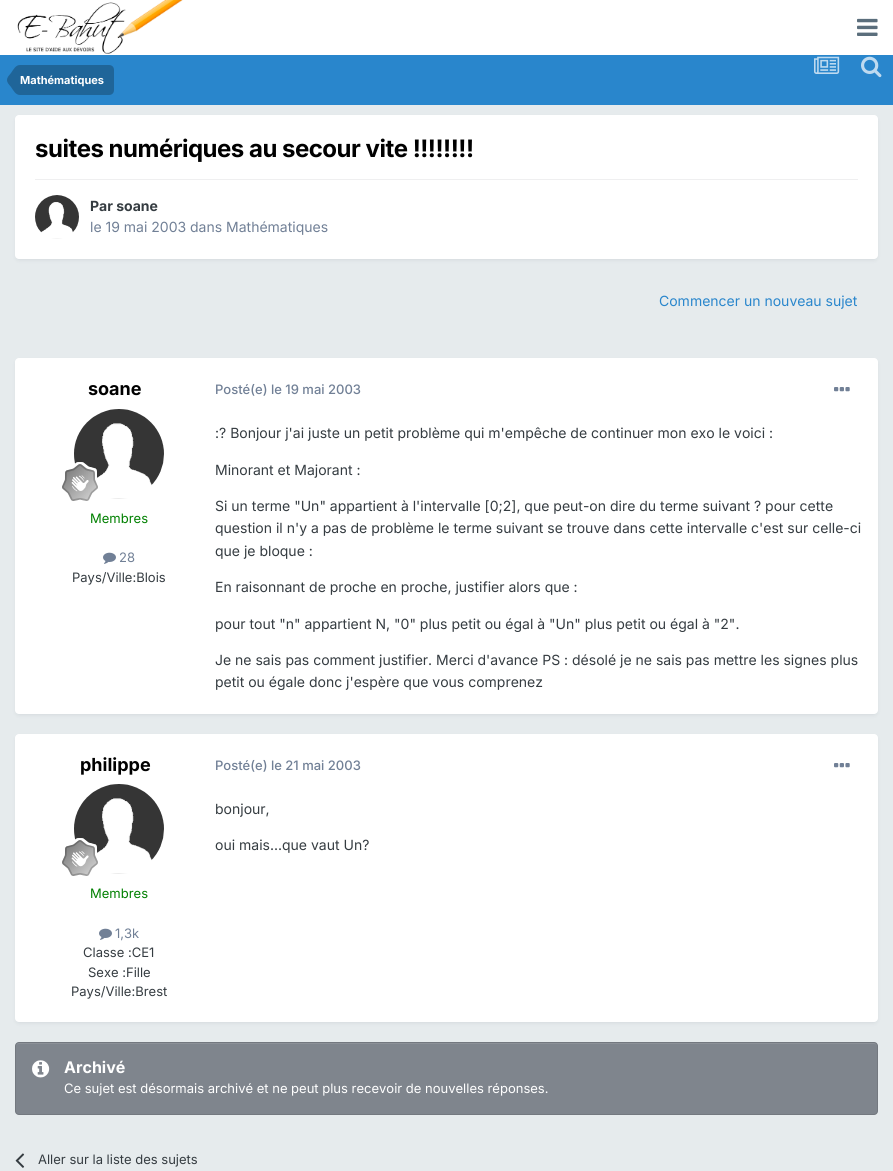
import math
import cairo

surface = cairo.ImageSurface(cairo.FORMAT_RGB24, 893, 1171)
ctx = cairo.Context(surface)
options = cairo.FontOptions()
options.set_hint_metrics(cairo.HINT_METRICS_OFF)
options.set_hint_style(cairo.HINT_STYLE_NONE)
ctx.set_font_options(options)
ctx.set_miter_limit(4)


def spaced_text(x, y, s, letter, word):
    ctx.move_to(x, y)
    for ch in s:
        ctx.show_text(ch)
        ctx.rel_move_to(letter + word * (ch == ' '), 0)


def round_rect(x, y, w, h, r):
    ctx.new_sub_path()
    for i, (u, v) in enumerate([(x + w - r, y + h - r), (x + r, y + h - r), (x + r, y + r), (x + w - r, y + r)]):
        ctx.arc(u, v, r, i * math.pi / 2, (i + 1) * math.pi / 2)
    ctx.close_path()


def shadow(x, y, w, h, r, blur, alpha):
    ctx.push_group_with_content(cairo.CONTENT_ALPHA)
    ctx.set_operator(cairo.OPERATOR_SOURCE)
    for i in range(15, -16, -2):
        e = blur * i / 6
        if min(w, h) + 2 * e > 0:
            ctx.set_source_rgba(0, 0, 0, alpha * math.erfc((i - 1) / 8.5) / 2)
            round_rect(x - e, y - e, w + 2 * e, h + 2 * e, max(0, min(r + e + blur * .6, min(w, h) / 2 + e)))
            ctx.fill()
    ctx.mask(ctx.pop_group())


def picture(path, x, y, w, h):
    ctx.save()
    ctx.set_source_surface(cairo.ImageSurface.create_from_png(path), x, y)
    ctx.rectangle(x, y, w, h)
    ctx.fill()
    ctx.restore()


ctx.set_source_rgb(0.902, 0.918, 0.929)
ctx.paint()
ctx.set_source_rgb(1, 1, 1)
ctx.rectangle(0, 0, 893, 55)
ctx.fill()
picture("img1.png", 17, 0, 166, 54)
picture("img2.png", 857, 18, 21, 18)
ctx.set_source_rgb(0.161, 0.525, 0.8)
ctx.rectangle(0, 55, 893, 50)
ctx.fill()
picture("img3.png", 814, 56, 26, 18)
picture("img4.png", 861, 56, 21, 22)
ctx.set_source_rgb(0.122, 0.396, 0.6)
ctx.new_path()
ctx.move_to(20, 65)
ctx.line_to(109, 65)
ctx.curve_to(112, 65, 114, 67, 114, 70)
ctx.line_to(114, 90)
ctx.curve_to(114, 93, 112, 95, 109, 95)
ctx.line_to(20, 95)
ctx.close_path()
ctx.fill()
ctx.new_path()
ctx.move_to(20, 80)
ctx.line_to(20, 95)
ctx.curve_to(15.5, 95, 13.5, 90.5, 11, 87)
ctx.curve_to(9.5, 85, 7, 83, 7, 80)
ctx.close_path()
ctx.move_to(20, 80)
ctx.line_to(7, 80)
ctx.curve_to(7, 77, 9.5, 75, 11, 73)
ctx.curve_to(13.5, 69.5, 15.5, 65, 20, 65)
ctx.close_path()
ctx.fill()
ctx.select_font_face("Inter", cairo.FONT_SLANT_NORMAL, cairo.FONT_WEIGHT_BOLD)
ctx.set_font_size(11)
ctx.set_source_rgb(1, 1, 1)
ctx.move_to(20, 84)
ctx.show_text("Mathématiques")
ctx.set_source_rgb(0.176, 0.216, 0.282)
shadow(16, 118, 861, 142, 3, 2, 0.1)
ctx.set_source_rgb(1, 1, 1)
round_rect(15, 115, 863, 144, 4)
ctx.fill()
ctx.set_font_size(24)
ctx.set_source_rgb(0, 0, 0)
spaced_text(35, 157, "suites numériques au secour vite !!!!!!!!", -0.5, 0)
ctx.set_source_rgb(0.937, 0.937, 0.941)
ctx.rectangle(35, 179, 823, 1)
ctx.fill()
picture("img5.png", 35, 195, 44, 44)
ctx.set_font_size(14)
ctx.set_source_rgb(0.208, 0.235, 0.255)
ctx.move_to(90, 211)
ctx.show_text("Par soane")
ctx.select_font_face("Inter")
ctx.set_source_rgb(0.443, 0.502, 0.588)
ctx.move_to(90, 232)
ctx.show_text("le 19 mai 2003 dans Mathématiques")
ctx.set_source_rgb(0.161, 0.525, 0.8)
ctx.move_to(659, 306)
ctx.show_text("Commencer un nouveau sujet")
ctx.set_source_rgb(0.176, 0.216, 0.282)
shadow(16, 361, 861, 354, 3, 2, 0.1)
ctx.set_source_rgb(1, 1, 1)
round_rect(15, 358, 863, 356, 4)
ctx.fill()
ctx.select_font_face("Inter", cairo.FONT_SLANT_NORMAL, cairo.FONT_WEIGHT_BOLD)
ctx.set_font_size(18)
ctx.set_source_rgb(0, 0, 0)
ctx.move_to(88, 395)
ctx.show_text("soane")
picture("img6.png", 74, 409, 90, 90)
picture("img7.png", 62, 462, 36, 39)
ctx.select_font_face("Inter")
ctx.set_font_size(13)
ctx.set_source_rgb(0, 0.502, 0)
ctx.move_to(90, 523)
ctx.show_text("Membres")
picture("img8.png", 103, 552, 13, 12)
ctx.set_source_rgb(0.443, 0.502, 0.588)
ctx.move_to(119, 562)
ctx.show_text("28")
ctx.set_source_rgb(0.208, 0.235, 0.255)
ctx.move_to(72, 582)
ctx.show_text("Pays/Ville:Blois")
ctx.select_font_face("Inter Medium")
ctx.set_source_rgb(0.443, 0.502, 0.588)
ctx.move_to(215, 394)
ctx.show_text("Posté(e) le 19 mai 2003")
picture("img9.png", 834, 387, 16, 5)
ctx.select_font_face("Inter")
ctx.set_font_size(14)
ctx.set_source_rgb(0.208, 0.235, 0.255)
ctx.move_to(215, 438)
ctx.show_text(":? Bonjour j'ai juste un petit problème qui m'empêche de continuer mon exo le voici :")
ctx.move_to(215, 475)
ctx.show_text("Minorant et Majorant :")
ctx.move_to(215, 511)
ctx.show_text("Si un terme \"Un\" appartient à l'intervalle [0;2], que peut-on dire du terme suivant ? pour cette")
ctx.move_to(215, 533)
ctx.show_text("question il n'y a pas de problème le terme suivant se trouve dans cette intervalle c'est sur celle-ci")
ctx.move_to(215, 556)
ctx.show_text("que je bloque :")
ctx.move_to(215, 592)
ctx.show_text("En raisonnant de proche en proche, justifier alors que :")
ctx.move_to(215, 629)
ctx.show_text("pour tout \"n\" appartient N, \"0\" plus petit ou égal à \"Un\" plus petit ou égal à \"2\".")
ctx.move_to(215, 665)
ctx.show_text("Je ne sais pas comment justifier. Merci d'avance PS : désolé je ne sais pas mettre les signes plus")
ctx.move_to(215, 687)
ctx.show_text("petit ou égale donc j'espère que vous comprenez")
ctx.set_source_rgb(0.176, 0.216, 0.282)
shadow(16, 737, 861, 286, 3, 2, 0.1)
ctx.set_source_rgb(1, 1, 1)
round_rect(15, 734, 863, 288, 4)
ctx.fill()
ctx.select_font_face("Inter", cairo.FONT_SLANT_NORMAL, cairo.FONT_WEIGHT_BOLD)
ctx.set_font_size(18)
ctx.set_source_rgb(0, 0, 0)
ctx.move_to(80, 771)
ctx.show_text("philippe")
picture("img10.png", 74, 784, 90, 90)
picture("img11.png", 62, 838, 36, 38)
ctx.select_font_face("Inter")
ctx.set_font_size(13)
ctx.set_source_rgb(0, 0.502, 0)
ctx.move_to(90, 898)
ctx.show_text("Membres")
picture("img8.png", 99, 928, 13, 12)
ctx.set_source_rgb(0.443, 0.502, 0.588)
ctx.move_to(115, 938)
ctx.show_text("1,3k")
ctx.set_source_rgb(0.208, 0.235, 0.255)
ctx.move_to(83, 957)
ctx.show_text("Classe :CE1")
ctx.move_to(88, 977)
ctx.show_text("Sexe :Fille")
ctx.move_to(71, 996)
ctx.show_text("Pays/Ville:Brest")
ctx.select_font_face("Inter Medium")
ctx.set_source_rgb(0.443, 0.502, 0.588)
ctx.move_to(215, 770)
ctx.show_text("Posté(e) le 21 mai 2003")
picture("img9.png", 834, 763, 16, 5)
ctx.select_font_face("Inter")
ctx.set_font_size(14)
ctx.set_source_rgb(0.208, 0.235, 0.255)
ctx.move_to(215, 814)
ctx.show_text("bonjour,")
ctx.move_to(215, 850)
ctx.show_text("oui mais...que vaut Un?")
ctx.set_source_rgb(0.498, 0.522, 0.553)
round_rect(15, 1042, 863, 73, 4)
ctx.fill()
ctx.set_source_rgb(0.549, 0.569, 0.596)
ctx.new_path()
ctx.move_to(19, 1044)
ctx.line_to(874, 1044)
ctx.curve_to(876, 1044, 877, 1045, 877, 1047)
ctx.curve_to(877, 1045, 876, 1043, 874, 1043)
ctx.line_to(19, 1043)
ctx.curve_to(17, 1043, 16, 1045, 16, 1047)
ctx.curve_to(16, 1045, 17, 1044, 19, 1044)
ctx.close_path()
ctx.fill()
round_rect(15.5, 1042.5, 862, 72, 3.5)
ctx.set_source_rgba(0, 0, 0, 0.1)
ctx.set_line_width(1)
ctx.stroke()
picture("img12.png", 32, 1060, 18, 18)
ctx.select_font_face("Inter", cairo.FONT_SLANT_NORMAL, cairo.FONT_WEIGHT_BOLD)
ctx.set_font_size(16)
ctx.set_source_rgb(1, 1, 1)
ctx.move_to(64, 1073)
ctx.show_text("Archivé")
ctx.select_font_face("Inter")
ctx.set_font_size(13)
ctx.move_to(64, 1093)
ctx.show_text("Ce sujet est désormais archivé et ne peut plus recevoir de nouvelles réponses.")
picture("img13.png", 15, 1153, 10, 15)
ctx.set_source_rgb(0.208, 0.235, 0.255)
ctx.move_to(38, 1164)
ctx.show_text("Aller sur la liste des sujets")
surface.write_to_png("page.png")
